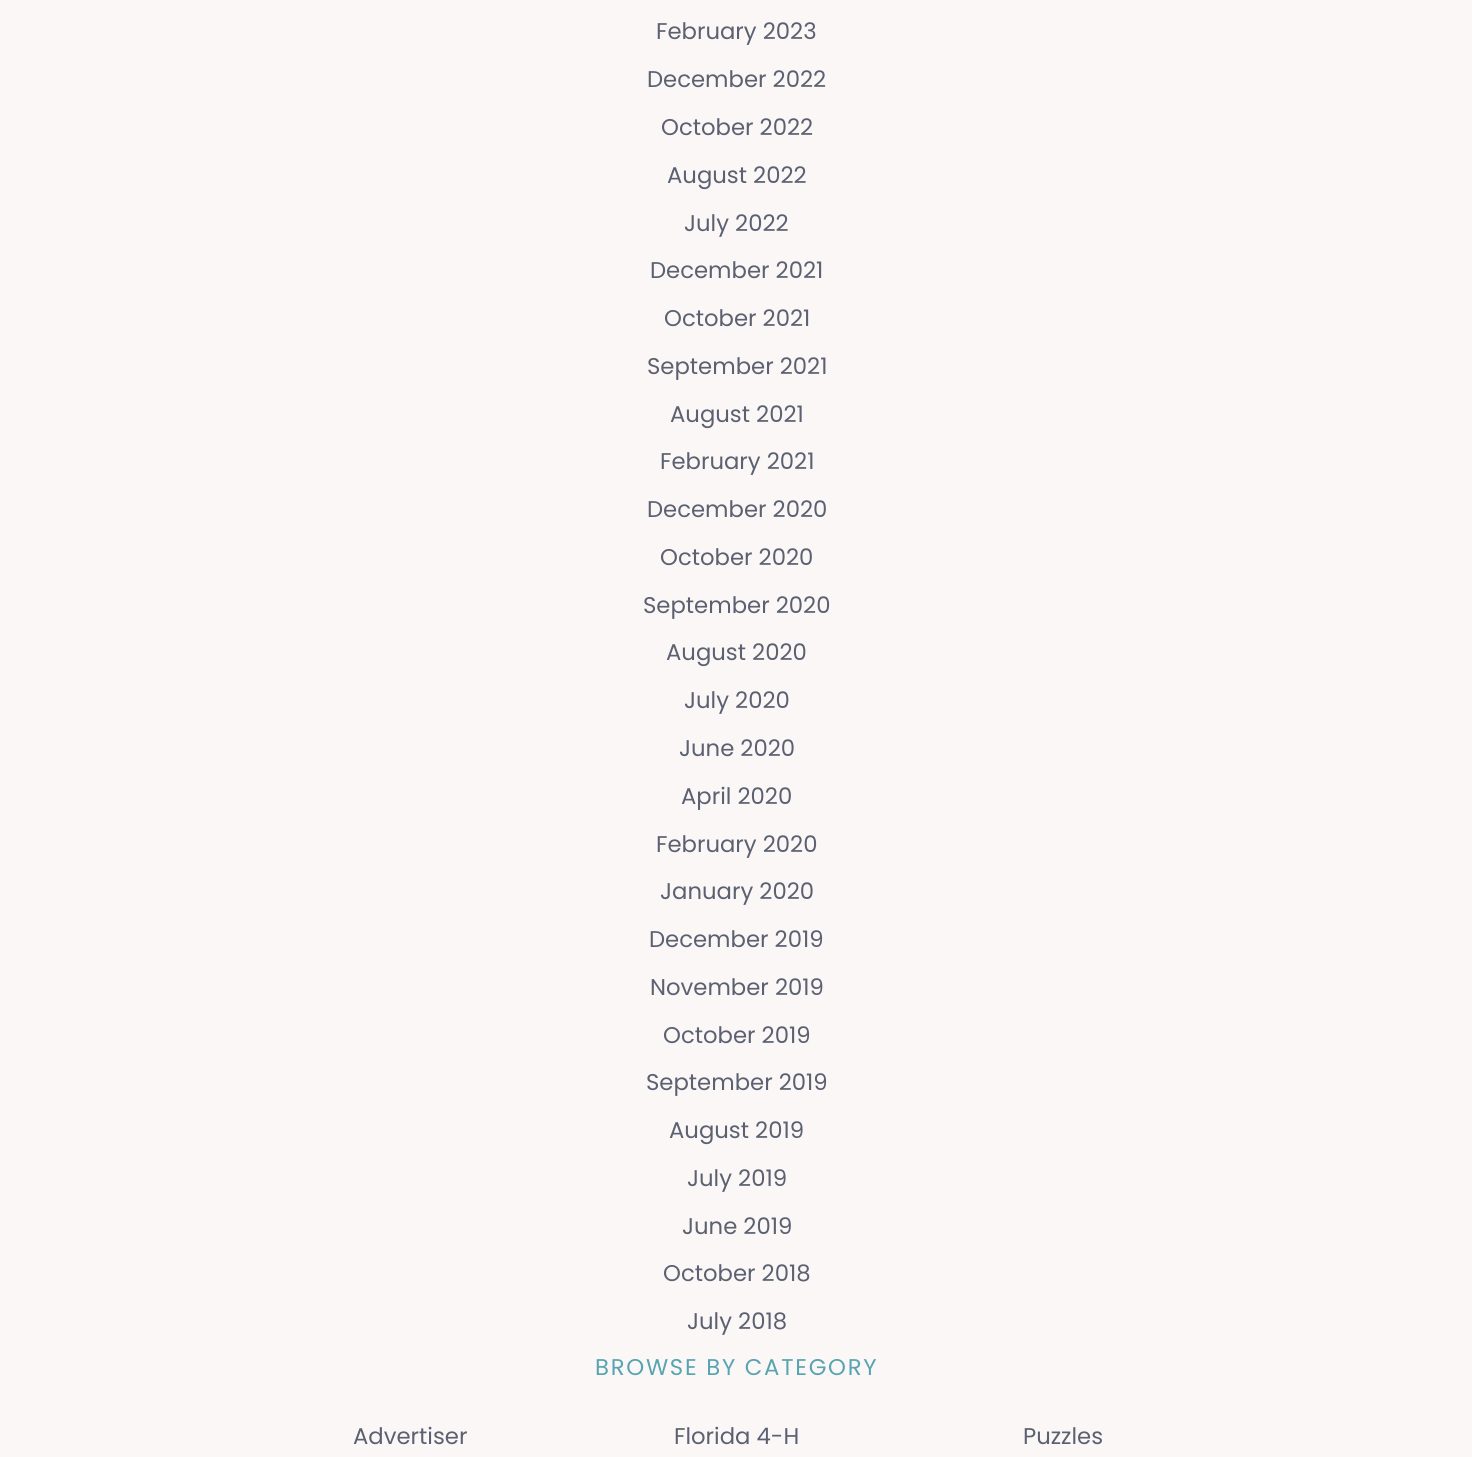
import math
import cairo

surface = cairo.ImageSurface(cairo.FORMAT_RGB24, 1472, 1457)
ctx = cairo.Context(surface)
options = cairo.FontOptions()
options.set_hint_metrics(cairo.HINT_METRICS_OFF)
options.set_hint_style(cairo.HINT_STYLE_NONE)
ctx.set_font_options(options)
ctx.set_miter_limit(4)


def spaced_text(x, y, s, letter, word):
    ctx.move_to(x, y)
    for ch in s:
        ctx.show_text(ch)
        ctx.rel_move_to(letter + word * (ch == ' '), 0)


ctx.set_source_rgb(0.984, 0.965, 0.961)
ctx.paint()
ctx.select_font_face("Poppins")
ctx.set_font_size(22.75)
ctx.set_source_rgb(0.357, 0.38, 0.439)
ctx.move_to(656, 39)
ctx.show_text("February 2023")
ctx.move_to(647, 87)
ctx.show_text("December 2022")
ctx.move_to(661, 135)
ctx.show_text("October 2022")
ctx.move_to(667, 183)
ctx.show_text("August 2022")
ctx.move_to(684, 231)
ctx.show_text("July 2022")
ctx.move_to(650, 278)
ctx.show_text("December 2021")
ctx.move_to(664, 326)
ctx.show_text("October 2021")
ctx.move_to(647, 374)
ctx.show_text("September 2021")
ctx.move_to(670, 422)
ctx.show_text("August 2021")
ctx.move_to(660, 469)
ctx.show_text("February 2021")
ctx.move_to(647, 517)
ctx.show_text("December 2020")
ctx.move_to(660, 565)
ctx.show_text("October 2020")
ctx.move_to(643, 613)
ctx.show_text("September 2020")
ctx.move_to(666, 660)
ctx.show_text("August 2020")
ctx.move_to(684, 708)
ctx.show_text("July 2020")
ctx.move_to(679, 756)
ctx.show_text("June 2020")
ctx.move_to(681, 804)
ctx.show_text("April 2020")
ctx.move_to(656, 852)
ctx.show_text("February 2020")
ctx.move_to(660, 899)
ctx.show_text("January 2020")
ctx.move_to(649, 947)
ctx.show_text("December 2019")
ctx.move_to(650, 995)
ctx.show_text("November 2019")
ctx.move_to(663, 1043)
ctx.show_text("October 2019")
ctx.move_to(646, 1090)
ctx.show_text("September 2019")
ctx.move_to(669, 1138)
ctx.show_text("August 2019")
ctx.move_to(687, 1186)
ctx.show_text("July 2019")
ctx.move_to(682, 1234)
ctx.show_text("June 2019")
ctx.move_to(663, 1281)
ctx.show_text("October 2018")
ctx.move_to(687, 1329)
ctx.show_text("July 2018")
ctx.set_source_rgb(0.345, 0.643, 0.69)
spaced_text(595, 1375, "BROWSE BY CATEGORY", 1.75, 0)
ctx.set_source_rgb(0.357, 0.38, 0.439)
ctx.move_to(353, 1444)
ctx.show_text("Advertiser")
ctx.move_to(674, 1444)
ctx.show_text("Florida 4-H")
ctx.move_to(1023, 1444)
ctx.show_text("Puzzles")
surface.write_to_png("page.png")
